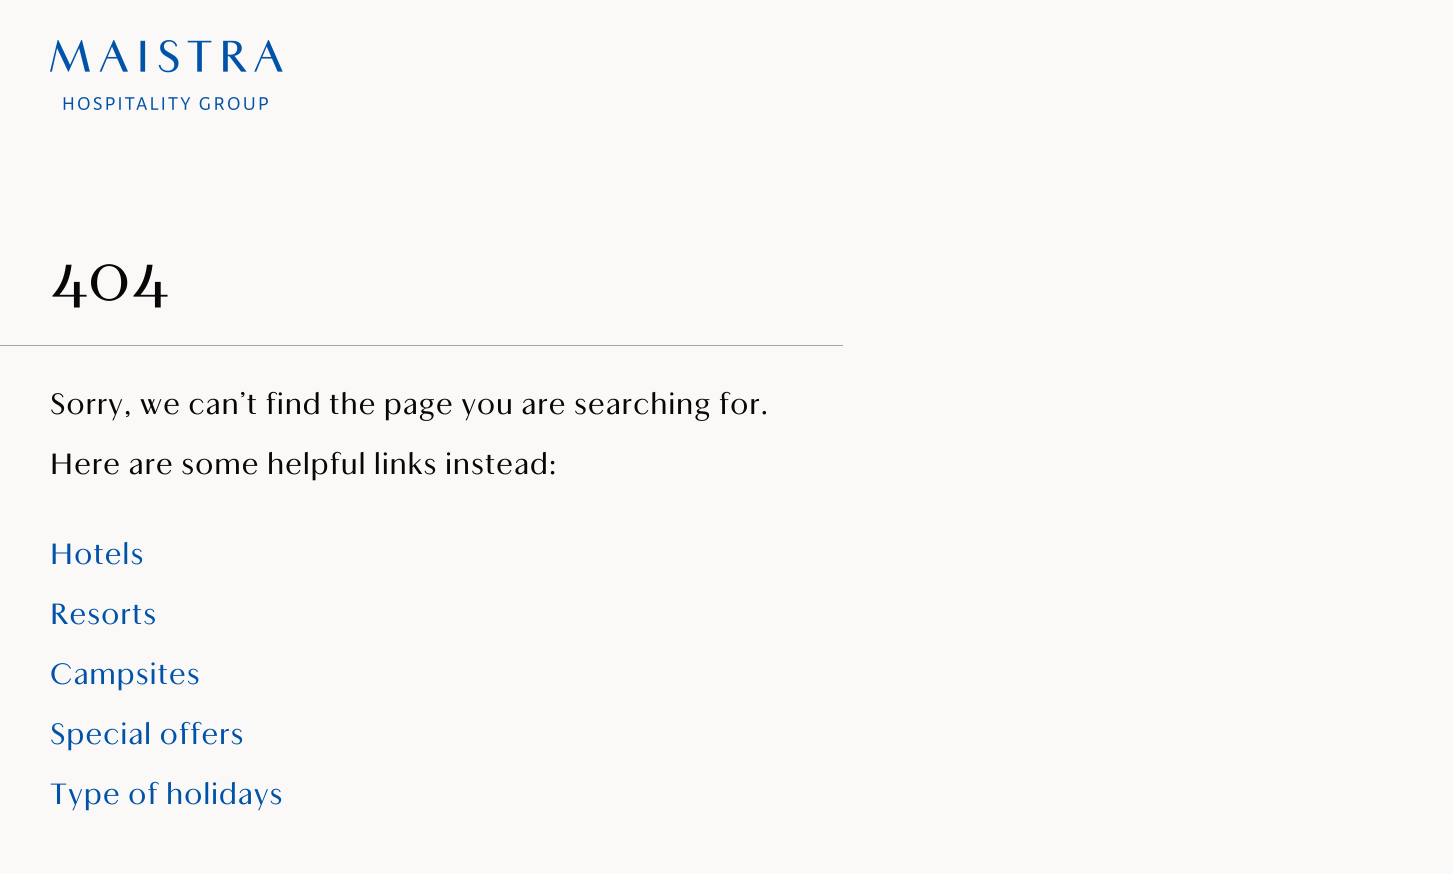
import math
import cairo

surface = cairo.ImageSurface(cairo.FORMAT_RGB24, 1453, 874)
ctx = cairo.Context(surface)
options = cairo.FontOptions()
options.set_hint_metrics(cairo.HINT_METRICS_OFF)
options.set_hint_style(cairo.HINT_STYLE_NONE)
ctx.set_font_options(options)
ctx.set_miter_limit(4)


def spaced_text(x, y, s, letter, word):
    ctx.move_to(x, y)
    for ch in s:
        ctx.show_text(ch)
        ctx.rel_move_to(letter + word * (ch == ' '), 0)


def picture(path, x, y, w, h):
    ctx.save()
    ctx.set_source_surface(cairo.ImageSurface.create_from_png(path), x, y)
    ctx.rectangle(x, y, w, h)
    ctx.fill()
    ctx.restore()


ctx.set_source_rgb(0.984, 0.976, 0.965)
ctx.paint()
picture("img1.png", 50, 40, 233, 70)
ctx.select_font_face("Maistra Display")
ctx.set_font_size(60)
ctx.set_source_rgb(0.031, 0.031, 0.031)
spaced_text(50, 300, "404", 1.25, 0)
ctx.set_source_rgb(0.651, 0.647, 0.639)
ctx.rectangle(0, 345, 843, 1)
ctx.fill()
ctx.set_font_size(30)
ctx.set_source_rgb(0.031, 0.031, 0.031)
spaced_text(50, 414, "Sorry, we can’t find the page you are searching for.", 1.25, 0)
spaced_text(50, 474, "Here are some helpful links instead:", 1.25, 0)
ctx.set_source_rgb(0, 0.325, 0.659)
spaced_text(50, 564, "Hotels", 1.25, 0)
spaced_text(50, 624, "Resorts", 1.25, 0)
spaced_text(50, 684, "Campsites", 1.25, 0)
spaced_text(50, 744, "Special offers", 1.25, 0)
spaced_text(50, 804, "Type of holidays", 1.25, 0)
surface.write_to_png("page.png")
